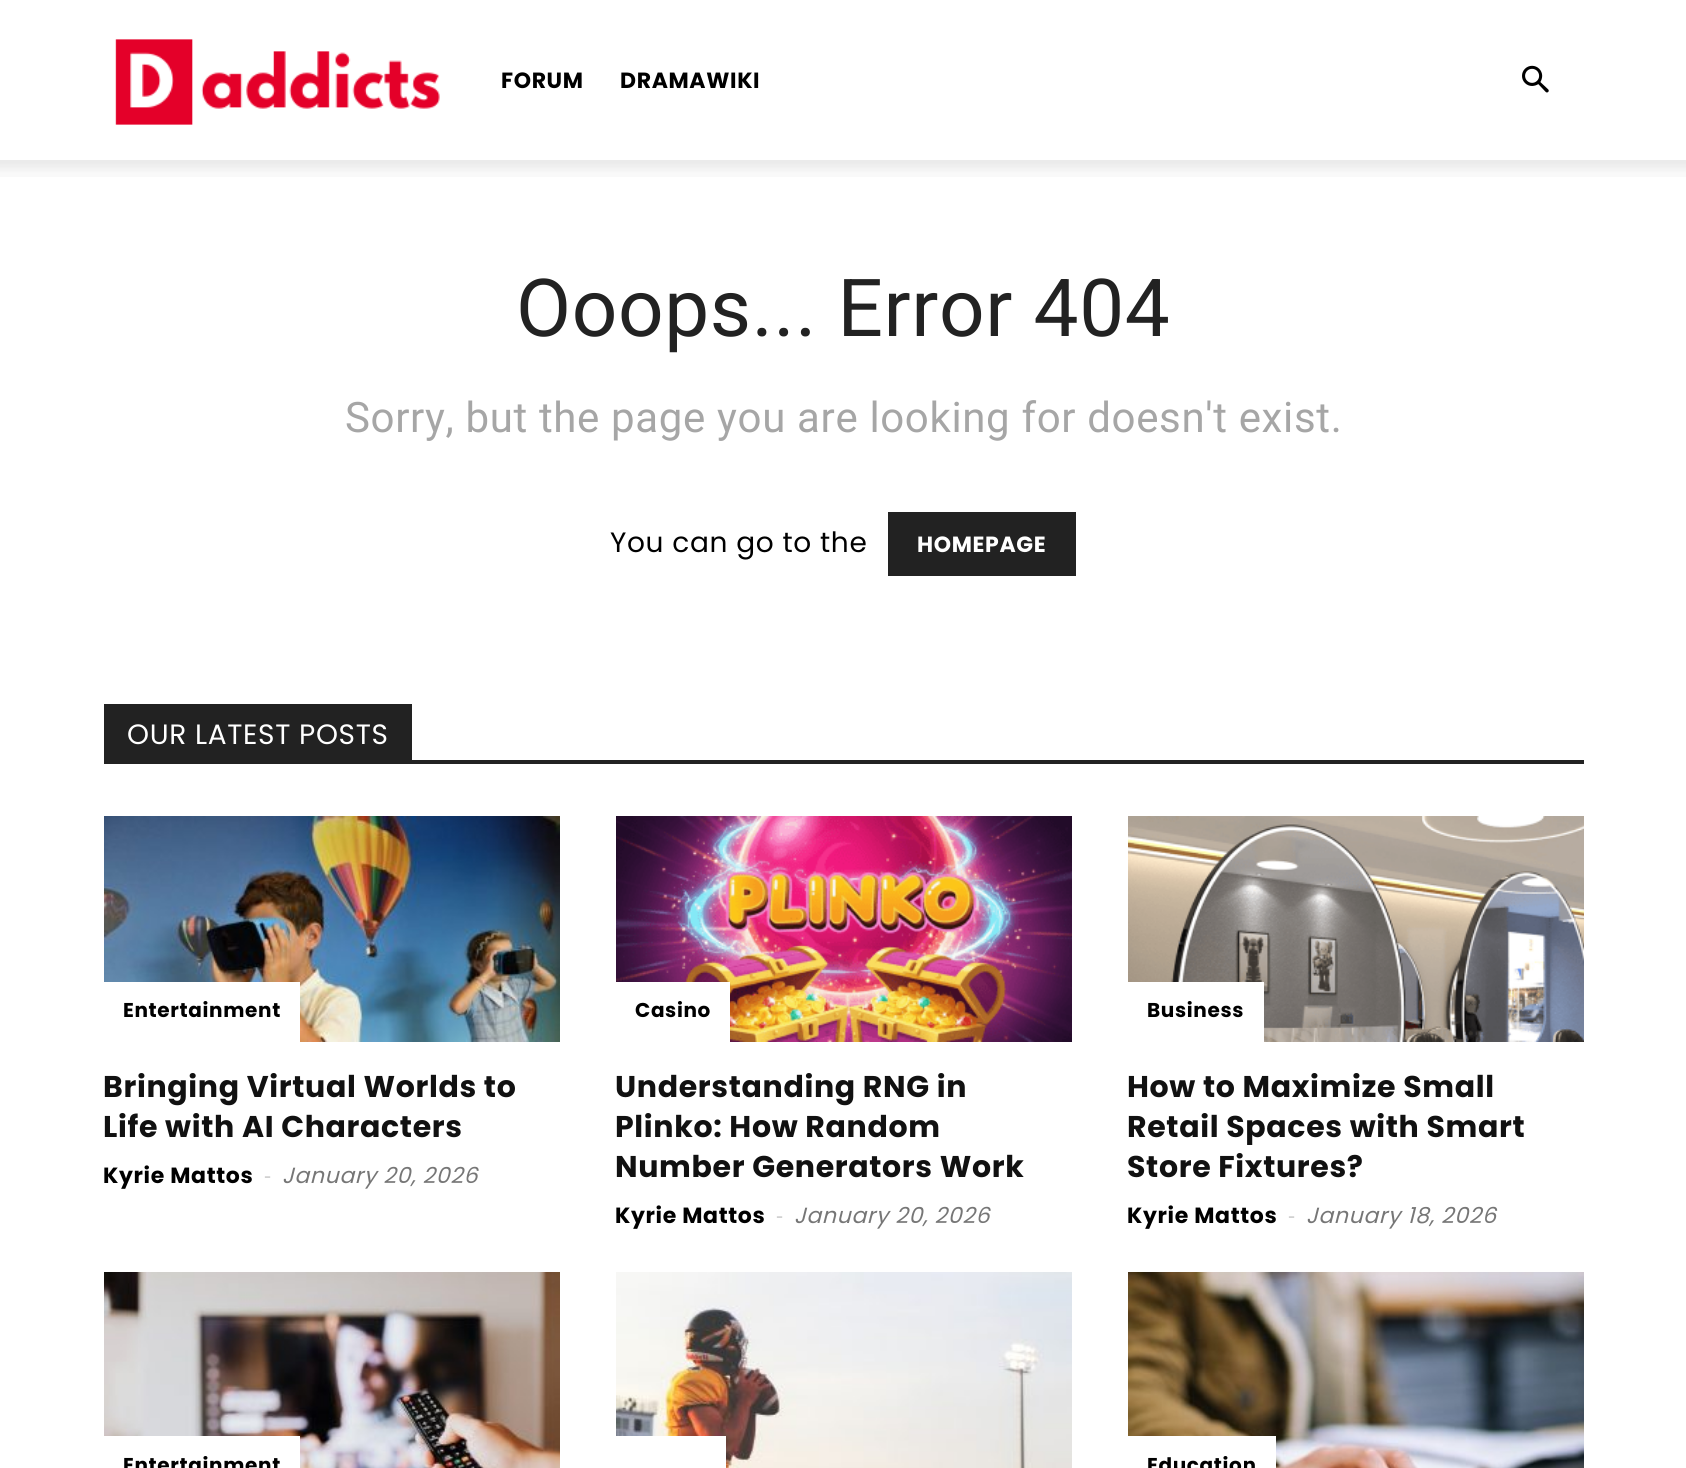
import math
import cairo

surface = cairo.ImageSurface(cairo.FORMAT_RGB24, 1686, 1468)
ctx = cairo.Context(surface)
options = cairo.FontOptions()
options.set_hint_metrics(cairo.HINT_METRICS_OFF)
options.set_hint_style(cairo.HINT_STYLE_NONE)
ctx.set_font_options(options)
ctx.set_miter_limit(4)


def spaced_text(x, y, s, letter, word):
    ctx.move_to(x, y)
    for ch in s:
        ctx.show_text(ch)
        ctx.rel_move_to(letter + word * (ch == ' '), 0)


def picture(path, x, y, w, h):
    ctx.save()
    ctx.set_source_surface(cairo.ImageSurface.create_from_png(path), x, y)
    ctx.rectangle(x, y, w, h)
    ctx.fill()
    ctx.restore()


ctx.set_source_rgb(1, 1, 1)
ctx.paint()
picture("img1.png", 115, 39, 325, 86)
ctx.select_font_face("Poppins", cairo.FONT_SLANT_NORMAL, cairo.FONT_WEIGHT_BOLD)
ctx.set_font_size(22)
ctx.set_source_rgb(0, 0, 0)
spaced_text(501, 88, "FORUM", 0.65, 0)
spaced_text(620, 88, "DRAMAWIKI", 0.65, 0)
picture("img2.png", 1522, 65, 27, 28)
picture("img3.png", 0, 160, 1686, 17)
ctx.select_font_face("Roboto")
ctx.set_font_size(80)
ctx.set_source_rgb(0.133, 0.133, 0.133)
spaced_text(516, 336, "Ooops... Error 404", 0.65, 0)
ctx.set_font_size(42)
ctx.set_source_rgb(0.651, 0.651, 0.651)
spaced_text(345, 432, "Sorry, but the page you are looking for doesn't exist.", 0.65, 0)
ctx.select_font_face("Poppins")
ctx.set_font_size(28)
ctx.set_source_rgb(0, 0, 0)
spaced_text(610, 552, "You can go to the", 0.65, 0)
ctx.set_source_rgb(0.133, 0.133, 0.133)
ctx.rectangle(888, 512, 188, 64)
ctx.fill()
ctx.select_font_face("Poppins", cairo.FONT_SLANT_NORMAL, cairo.FONT_WEIGHT_BOLD)
ctx.set_font_size(22)
ctx.set_source_rgb(1, 1, 1)
spaced_text(917, 552, "HOMEPAGE", 0.65, 0)
ctx.set_source_rgb(0.133, 0.133, 0.133)
ctx.rectangle(104, 760, 1480, 4)
ctx.fill()
ctx.rectangle(104, 704, 308, 56)
ctx.fill()
ctx.select_font_face("Poppins")
ctx.set_font_size(28)
ctx.set_source_rgb(1, 1, 1)
spaced_text(127, 744, "OUR LATEST POSTS", 0.65, 0)
picture("img4.png", 104, 816, 456, 226)
ctx.rectangle(104, 982, 196, 60)
ctx.fill()
ctx.select_font_face("Poppins", cairo.FONT_SLANT_NORMAL, cairo.FONT_WEIGHT_BOLD)
ctx.set_font_size(20)
ctx.set_source_rgb(0, 0, 0)
spaced_text(123, 1017, "Entertainment", 0.65, 0)
ctx.set_font_size(30)
ctx.set_source_rgb(0.067, 0.067, 0.067)
spaced_text(103, 1097, "Bringing Virtual Worlds to", 0.65, 0)
spaced_text(103, 1137, "Life with AI Characters", 0.65, 0)
ctx.set_font_size(22)
ctx.set_source_rgb(0, 0, 0)
spaced_text(103, 1183, "Kyrie Mattos", 0.65, 0)
ctx.select_font_face("Open Sans")
ctx.set_source_rgb(0.8, 0.8, 0.8)
spaced_text(264, 1183, "-", 0.65, 0)
ctx.select_font_face("Poppins", cairo.FONT_SLANT_ITALIC)
ctx.set_source_rgb(0.463, 0.463, 0.463)
spaced_text(282, 1183, "January 20, 2026", 0.65, 0)
picture("img5.png", 616, 816, 456, 226)
ctx.set_source_rgb(1, 1, 1)
ctx.rectangle(616, 982, 114, 60)
ctx.fill()
ctx.select_font_face("Poppins", cairo.FONT_SLANT_NORMAL, cairo.FONT_WEIGHT_BOLD)
ctx.set_font_size(20)
ctx.set_source_rgb(0, 0, 0)
spaced_text(635, 1017, "Casino", 0.65, 0)
ctx.set_font_size(30)
ctx.set_source_rgb(0.067, 0.067, 0.067)
spaced_text(615, 1097, "Understanding RNG in", 0.65, 0)
spaced_text(615, 1137, "Plinko: How Random", 0.65, 0)
spaced_text(615, 1177, "Number Generators Work", 0.65, 0)
ctx.set_font_size(22)
ctx.set_source_rgb(0, 0, 0)
spaced_text(615, 1223, "Kyrie Mattos", 0.65, 0)
ctx.select_font_face("Open Sans")
ctx.set_source_rgb(0.8, 0.8, 0.8)
spaced_text(776, 1223, "-", 0.65, 0)
ctx.select_font_face("Poppins", cairo.FONT_SLANT_ITALIC)
ctx.set_source_rgb(0.463, 0.463, 0.463)
spaced_text(794, 1223, "January 20, 2026", 0.65, 0)
picture("img6.png", 1128, 816, 456, 226)
ctx.set_source_rgb(1, 1, 1)
ctx.rectangle(1128, 982, 136, 60)
ctx.fill()
ctx.select_font_face("Poppins", cairo.FONT_SLANT_NORMAL, cairo.FONT_WEIGHT_BOLD)
ctx.set_font_size(20)
ctx.set_source_rgb(0, 0, 0)
spaced_text(1147, 1017, "Business", 0.65, 0)
ctx.set_font_size(30)
ctx.set_source_rgb(0.067, 0.067, 0.067)
spaced_text(1127, 1097, "How to Maximize Small", 0.65, 0)
spaced_text(1127, 1137, "Retail Spaces with Smart", 0.65, 0)
spaced_text(1127, 1177, "Store Fixtures?", 0.65, 0)
ctx.set_font_size(22)
ctx.set_source_rgb(0, 0, 0)
spaced_text(1127, 1223, "Kyrie Mattos", 0.65, 0)
ctx.select_font_face("Open Sans")
ctx.set_source_rgb(0.8, 0.8, 0.8)
spaced_text(1288, 1223, "-", 0.65, 0)
ctx.select_font_face("Poppins", cairo.FONT_SLANT_ITALIC)
ctx.set_source_rgb(0.463, 0.463, 0.463)
spaced_text(1306, 1223, "January 18, 2026", 0.65, 0)
picture("img7.png", 104, 1272, 456, 196)
ctx.set_source_rgb(1, 1, 1)
ctx.rectangle(104, 1436, 196, 32)
ctx.fill()
ctx.select_font_face("Poppins", cairo.FONT_SLANT_NORMAL, cairo.FONT_WEIGHT_BOLD)
ctx.set_font_size(20)
ctx.set_source_rgb(0, 0, 0)
spaced_text(123, 1472, "Entertainment", 0.65, 0)
picture("img8.png", 616, 1272, 456, 196)
ctx.set_source_rgb(1, 1, 1)
ctx.rectangle(616, 1436, 110, 32)
ctx.fill()
picture("img9.png", 1128, 1272, 456, 196)
ctx.rectangle(1128, 1436, 148, 32)
ctx.fill()
ctx.set_source_rgb(0, 0, 0)
spaced_text(1147, 1472, "Education", 0.65, 0)
surface.write_to_png("page.png")
